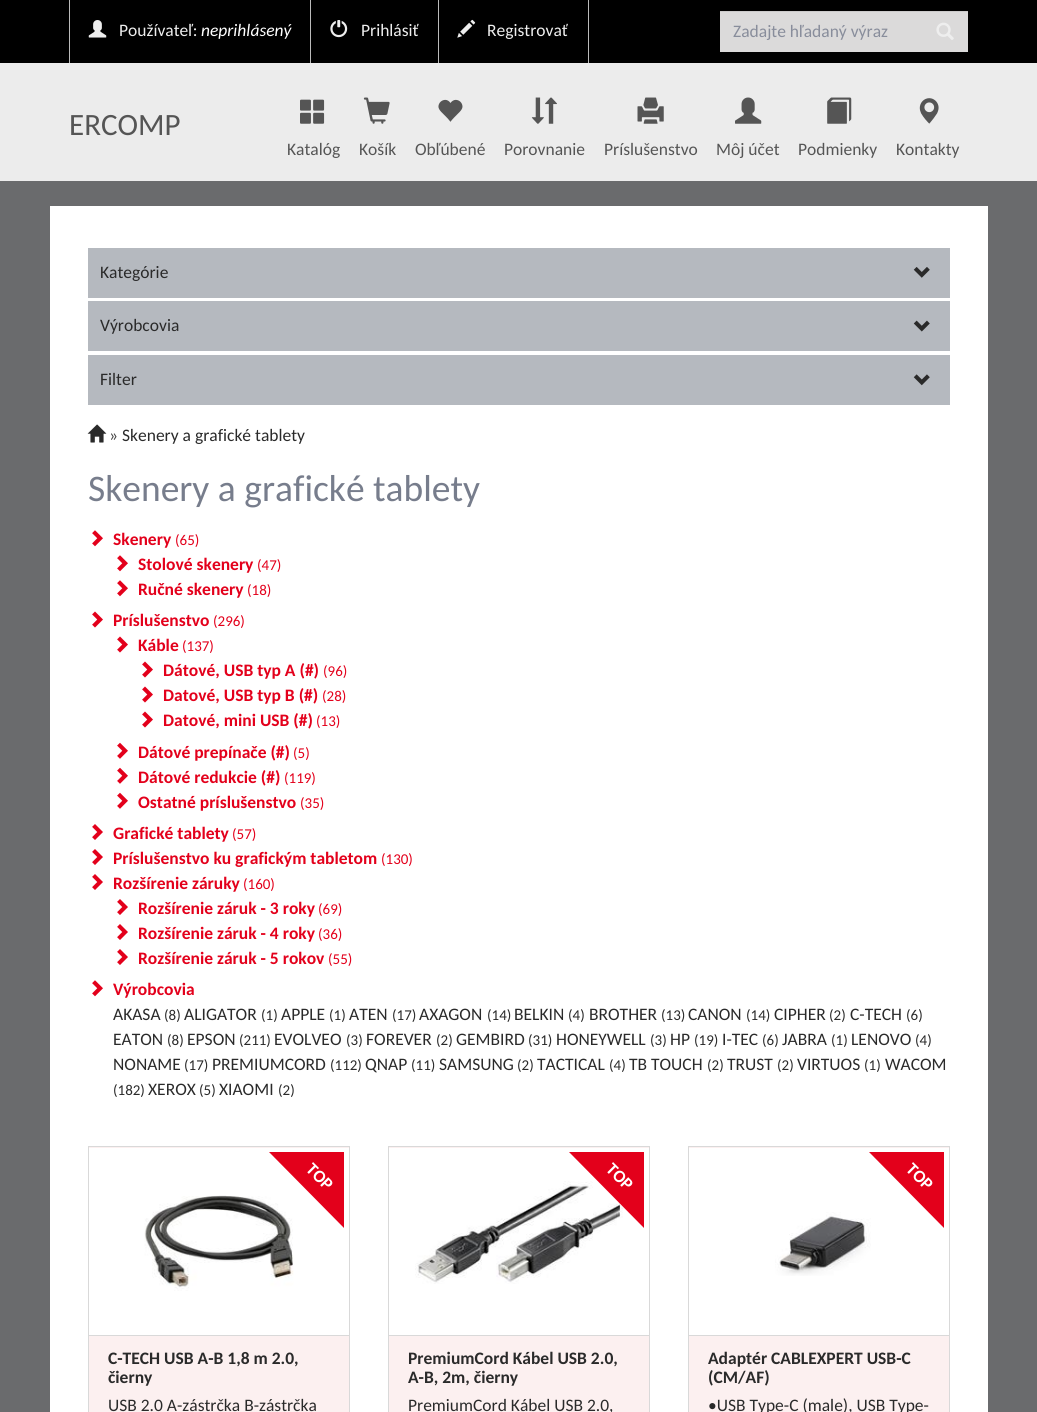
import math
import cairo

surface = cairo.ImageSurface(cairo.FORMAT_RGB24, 1037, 1412)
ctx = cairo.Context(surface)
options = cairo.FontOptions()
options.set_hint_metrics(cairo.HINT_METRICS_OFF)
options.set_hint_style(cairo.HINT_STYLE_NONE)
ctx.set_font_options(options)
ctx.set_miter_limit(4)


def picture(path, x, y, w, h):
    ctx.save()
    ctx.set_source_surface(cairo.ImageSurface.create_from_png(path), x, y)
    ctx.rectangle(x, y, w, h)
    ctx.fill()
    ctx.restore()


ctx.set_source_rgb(0.416, 0.42, 0.427)
ctx.paint()
ctx.set_source_rgb(0, 0, 0)
ctx.rectangle(0, 0, 1037, 63)
ctx.fill()
ctx.set_source_rgb(0.733, 0.733, 0.733)
ctx.rectangle(69, 0, 1, 63)
ctx.fill()
picture("img1.png", 88, 20, 19, 18)
ctx.select_font_face("Carlito")
ctx.set_font_size(17.5)
ctx.set_source_rgb(0.933, 0.933, 0.933)
ctx.move_to(119, 36)
ctx.show_text("Používateľ:")
ctx.select_font_face("Carlito", cairo.FONT_SLANT_ITALIC)
ctx.set_source_rgb(1, 1, 1)
ctx.move_to(201, 36)
ctx.show_text("neprihlásený")
ctx.set_source_rgb(0.733, 0.733, 0.733)
ctx.rectangle(310, 0, 1, 63)
ctx.fill()
picture("img2.png", 330, 20, 18, 18)
ctx.select_font_face("Carlito")
ctx.set_source_rgb(0.933, 0.933, 0.933)
ctx.move_to(361, 36)
ctx.show_text("Prihlásiť")
ctx.set_source_rgb(0.733, 0.733, 0.733)
ctx.rectangle(588, 0, 1, 63)
ctx.fill()
ctx.rectangle(438, 0, 1, 63)
ctx.fill()
picture("img3.png", 457, 19, 19, 19)
ctx.set_source_rgb(0.933, 0.933, 0.933)
ctx.move_to(487, 36)
ctx.show_text("Registrovať")
ctx.set_source_rgb(0.859, 0.855, 0.855)
ctx.rectangle(720, 12, 248, 40)
ctx.fill()
ctx.set_source_rgb(0.796, 0.792, 0.792)
ctx.rectangle(720, 11, 248, 1)
ctx.fill()
ctx.set_source_rgb(0.533, 0.553, 0.608)
ctx.move_to(733, 37)
ctx.show_text("Zadajte hľadaný výraz")
picture("img4.png", 936, 22, 18, 18)
ctx.set_source_rgb(0.925, 0.925, 0.925)
ctx.rectangle(0, 63, 1037, 118)
ctx.fill()
ctx.set_font_size(31)
ctx.set_source_rgb(0.333, 0.333, 0.333)
ctx.move_to(69, 135)
ctx.show_text("ERCOMP")
picture("img5.png", 300, 99, 25, 25)
ctx.set_font_size(17.5)
ctx.move_to(287, 155)
ctx.show_text("Katalóg")
picture("img6.png", 363, 97, 27, 27)
ctx.move_to(359, 155)
ctx.show_text("Košík")
picture("img7.png", 438, 99, 25, 23)
ctx.move_to(415, 155)
ctx.show_text("Obľúbené")
picture("img8.png", 531, 97, 26, 27)
ctx.move_to(504, 155)
ctx.show_text("Porovnanie")
picture("img9.png", 637, 97, 27, 27)
ctx.move_to(604, 155)
ctx.show_text("Príslušenstvo")
picture("img10.png", 735, 97, 27, 27)
ctx.move_to(716, 155)
ctx.show_text("Môj účet")
picture("img11.png", 827, 97, 25, 27)
ctx.move_to(798, 155)
ctx.show_text("Podmienky")
picture("img12.png", 919, 98, 20, 26)
ctx.move_to(896, 155)
ctx.show_text("Kontakty")
ctx.set_source_rgb(1, 1, 1)
ctx.rectangle(50, 206, 938, 1206)
ctx.fill()
ctx.set_source_rgb(0.71, 0.725, 0.749)
ctx.rectangle(88, 248, 862, 50)
ctx.fill()
ctx.set_source_rgb(0.165, 0.165, 0.165)
ctx.move_to(100, 278)
ctx.show_text("Kategórie")
picture("img13.png", 913, 267, 17, 11)
ctx.set_source_rgb(0.71, 0.725, 0.749)
ctx.rectangle(88, 301, 862, 50)
ctx.fill()
ctx.set_source_rgb(0.165, 0.165, 0.165)
ctx.move_to(100, 331)
ctx.show_text("Výrobcovia")
picture("img14.png", 913, 320, 17, 12)
ctx.set_source_rgb(0.71, 0.725, 0.749)
ctx.rectangle(88, 355, 862, 50)
ctx.fill()
ctx.set_source_rgb(0.165, 0.165, 0.165)
ctx.move_to(100, 385)
ctx.show_text("Filter")
picture("img15.png", 913, 374, 17, 12)
picture("img16.png", 87, 424, 20, 19)
ctx.set_source_rgb(0.267, 0.267, 0.267)
ctx.move_to(109, 441)
ctx.show_text("»")
ctx.set_source_rgb(0.165, 0.165, 0.165)
ctx.move_to(122, 441)
ctx.show_text("Skenery a grafické tablety")
ctx.set_font_size(37.5)
ctx.set_source_rgb(0.467, 0.49, 0.549)
ctx.move_to(88, 501)
ctx.show_text("Skenery a grafické tablety")
picture("img17.png", 92, 530, 11, 17)
ctx.select_font_face("Carlito", cairo.FONT_SLANT_NORMAL, cairo.FONT_WEIGHT_BOLD)
ctx.set_font_size(17.5)
ctx.set_source_rgb(0.89, 0, 0.106)
ctx.move_to(113, 545)
ctx.show_text("Skenery")
ctx.select_font_face("Carlito")
ctx.set_font_size(15)
ctx.move_to(175, 545)
ctx.show_text("(65)")
picture("img17.png", 117, 555, 11, 17)
ctx.select_font_face("Carlito", cairo.FONT_SLANT_NORMAL, cairo.FONT_WEIGHT_BOLD)
ctx.set_font_size(17.5)
ctx.move_to(138, 570)
ctx.show_text("Stolové skenery")
ctx.select_font_face("Carlito")
ctx.set_font_size(15)
ctx.move_to(257, 570)
ctx.show_text("(47)")
picture("img17.png", 117, 580, 11, 17)
ctx.select_font_face("Carlito", cairo.FONT_SLANT_NORMAL, cairo.FONT_WEIGHT_BOLD)
ctx.set_font_size(17.5)
ctx.move_to(138, 595)
ctx.show_text("Ručné skenery")
ctx.select_font_face("Carlito")
ctx.set_font_size(15)
ctx.move_to(247, 595)
ctx.show_text("(18)")
picture("img18.png", 92, 611, 11, 17)
ctx.select_font_face("Carlito", cairo.FONT_SLANT_NORMAL, cairo.FONT_WEIGHT_BOLD)
ctx.set_font_size(17.5)
ctx.move_to(113, 626)
ctx.show_text("Príslušenstvo")
ctx.select_font_face("Carlito")
ctx.set_font_size(15)
ctx.move_to(213, 626)
ctx.show_text("(296)")
picture("img18.png", 117, 636, 11, 17)
ctx.select_font_face("Carlito", cairo.FONT_SLANT_NORMAL, cairo.FONT_WEIGHT_BOLD)
ctx.set_font_size(17.5)
ctx.move_to(138, 651)
ctx.show_text("Káble")
ctx.select_font_face("Carlito")
ctx.set_font_size(15)
ctx.move_to(182, 651)
ctx.show_text("(137)")
picture("img18.png", 142, 661, 11, 17)
ctx.select_font_face("Carlito", cairo.FONT_SLANT_NORMAL, cairo.FONT_WEIGHT_BOLD)
ctx.set_font_size(17.5)
ctx.move_to(163, 676)
ctx.show_text("Dátové, USB typ A (#)")
ctx.select_font_face("Carlito")
ctx.set_font_size(15)
ctx.move_to(323, 676)
ctx.show_text("(96)")
picture("img18.png", 142, 686, 11, 17)
ctx.select_font_face("Carlito", cairo.FONT_SLANT_NORMAL, cairo.FONT_WEIGHT_BOLD)
ctx.set_font_size(17.5)
ctx.move_to(163, 701)
ctx.show_text("Datové, USB typ B (#)")
ctx.select_font_face("Carlito")
ctx.set_font_size(15)
ctx.move_to(322, 701)
ctx.show_text("(28)")
picture("img18.png", 142, 711, 11, 17)
ctx.select_font_face("Carlito", cairo.FONT_SLANT_NORMAL, cairo.FONT_WEIGHT_BOLD)
ctx.set_font_size(17.5)
ctx.move_to(163, 726)
ctx.show_text("Datové, mini USB (#)")
ctx.select_font_face("Carlito")
ctx.set_font_size(15)
ctx.move_to(316, 726)
ctx.show_text("(13)")
picture("img19.png", 117, 742, 11, 17)
ctx.select_font_face("Carlito", cairo.FONT_SLANT_NORMAL, cairo.FONT_WEIGHT_BOLD)
ctx.set_font_size(17.5)
ctx.move_to(138, 758)
ctx.show_text("Dátové prepínače (#)")
ctx.select_font_face("Carlito")
ctx.set_font_size(15)
ctx.move_to(293, 758)
ctx.show_text("(5)")
picture("img19.png", 117, 767, 11, 17)
ctx.select_font_face("Carlito", cairo.FONT_SLANT_NORMAL, cairo.FONT_WEIGHT_BOLD)
ctx.set_font_size(17.5)
ctx.move_to(138, 783)
ctx.show_text("Dátové redukcie (#)")
ctx.select_font_face("Carlito")
ctx.set_font_size(15)
ctx.move_to(284, 783)
ctx.show_text("(119)")
picture("img19.png", 117, 792, 11, 17)
ctx.select_font_face("Carlito", cairo.FONT_SLANT_NORMAL, cairo.FONT_WEIGHT_BOLD)
ctx.set_font_size(17.5)
ctx.move_to(138, 808)
ctx.show_text("Ostatné príslušenstvo")
ctx.select_font_face("Carlito")
ctx.set_font_size(15)
ctx.move_to(300, 808)
ctx.show_text("(35)")
picture("img20.png", 92, 824, 11, 16)
ctx.select_font_face("Carlito", cairo.FONT_SLANT_NORMAL, cairo.FONT_WEIGHT_BOLD)
ctx.set_font_size(17.5)
ctx.move_to(113, 839)
ctx.show_text("Grafické tablety")
ctx.select_font_face("Carlito")
ctx.set_font_size(15)
ctx.move_to(232, 839)
ctx.show_text("(57)")
picture("img20.png", 92, 849, 11, 16)
ctx.select_font_face("Carlito", cairo.FONT_SLANT_NORMAL, cairo.FONT_WEIGHT_BOLD)
ctx.set_font_size(17.5)
ctx.move_to(113, 864)
ctx.show_text("Príslušenstvo ku grafickým tabletom")
ctx.select_font_face("Carlito")
ctx.set_font_size(15)
ctx.move_to(381, 864)
ctx.show_text("(130)")
picture("img20.png", 92, 874, 11, 16)
ctx.select_font_face("Carlito", cairo.FONT_SLANT_NORMAL, cairo.FONT_WEIGHT_BOLD)
ctx.set_font_size(17.5)
ctx.move_to(113, 889)
ctx.show_text("Rozšírenie záruky")
ctx.select_font_face("Carlito")
ctx.set_font_size(15)
ctx.move_to(243, 889)
ctx.show_text("(160)")
picture("img20.png", 117, 899, 11, 16)
ctx.select_font_face("Carlito", cairo.FONT_SLANT_NORMAL, cairo.FONT_WEIGHT_BOLD)
ctx.set_font_size(17.5)
ctx.move_to(138, 914)
ctx.show_text("Rozšírenie záruk - 3 roky")
ctx.select_font_face("Carlito")
ctx.set_font_size(15)
ctx.move_to(318, 914)
ctx.show_text("(69)")
picture("img20.png", 117, 924, 11, 16)
ctx.select_font_face("Carlito", cairo.FONT_SLANT_NORMAL, cairo.FONT_WEIGHT_BOLD)
ctx.set_font_size(17.5)
ctx.move_to(138, 939)
ctx.show_text("Rozšírenie záruk - 4 roky")
ctx.select_font_face("Carlito")
ctx.set_font_size(15)
ctx.move_to(318, 939)
ctx.show_text("(36)")
picture("img20.png", 117, 949, 11, 16)
ctx.select_font_face("Carlito", cairo.FONT_SLANT_NORMAL, cairo.FONT_WEIGHT_BOLD)
ctx.set_font_size(17.5)
ctx.move_to(138, 964)
ctx.show_text("Rozšírenie záruk - 5 rokov")
ctx.select_font_face("Carlito")
ctx.set_font_size(15)
ctx.move_to(328, 964)
ctx.show_text("(55)")
picture("img17.png", 92, 980, 11, 17)
ctx.select_font_face("Carlito", cairo.FONT_SLANT_NORMAL, cairo.FONT_WEIGHT_BOLD)
ctx.set_font_size(17.5)
ctx.move_to(113, 995)
ctx.show_text("Výrobcovia")
ctx.select_font_face("Carlito")
ctx.set_source_rgb(0.165, 0.165, 0.165)
ctx.move_to(113, 1020)
ctx.show_text("AKASA")
ctx.set_font_size(15)
ctx.move_to(164, 1020)
ctx.show_text("(8)")
ctx.set_font_size(17.5)
ctx.move_to(184, 1020)
ctx.show_text("ALIGATOR")
ctx.set_font_size(15)
ctx.move_to(261, 1020)
ctx.show_text("(1)")
ctx.set_font_size(17.5)
ctx.move_to(281, 1020)
ctx.show_text("APPLE")
ctx.set_font_size(15)
ctx.move_to(329, 1020)
ctx.show_text("(1)")
ctx.set_font_size(17.5)
ctx.move_to(349, 1020)
ctx.show_text("ATEN")
ctx.set_font_size(15)
ctx.move_to(392, 1020)
ctx.show_text("(17)")
ctx.set_font_size(17.5)
ctx.move_to(419, 1020)
ctx.show_text("AXAGON")
ctx.set_font_size(15)
ctx.move_to(487, 1020)
ctx.show_text("(14)")
ctx.set_font_size(17.5)
ctx.move_to(514, 1020)
ctx.show_text("BELKIN")
ctx.set_font_size(15)
ctx.move_to(568, 1020)
ctx.show_text("(4)")
ctx.set_font_size(17.5)
ctx.move_to(589, 1020)
ctx.show_text("BROTHER")
ctx.set_font_size(15)
ctx.move_to(661, 1020)
ctx.show_text("(13)")
ctx.set_font_size(17.5)
ctx.move_to(688, 1020)
ctx.show_text("CANON")
ctx.set_font_size(15)
ctx.move_to(746, 1020)
ctx.show_text("(14)")
ctx.set_font_size(17.5)
ctx.move_to(774, 1020)
ctx.show_text("CIPHER")
ctx.set_font_size(15)
ctx.move_to(829, 1020)
ctx.show_text("(2)")
ctx.set_font_size(17.5)
ctx.move_to(850, 1020)
ctx.show_text("C-TECH")
ctx.set_font_size(15)
ctx.move_to(906, 1020)
ctx.show_text("(6)")
ctx.set_font_size(17.5)
ctx.move_to(113, 1045)
ctx.show_text("EATON")
ctx.set_font_size(15)
ctx.move_to(167, 1045)
ctx.show_text("(8)")
ctx.set_font_size(17.5)
ctx.move_to(187, 1045)
ctx.show_text("EPSON")
ctx.set_font_size(15)
ctx.move_to(239, 1045)
ctx.show_text("(211)")
ctx.set_font_size(17.5)
ctx.move_to(274, 1045)
ctx.show_text("EVOLVEO")
ctx.set_font_size(15)
ctx.move_to(346, 1045)
ctx.show_text("(3)")
ctx.set_font_size(17.5)
ctx.move_to(366, 1045)
ctx.show_text("FOREVER")
ctx.set_font_size(15)
ctx.move_to(436, 1045)
ctx.show_text("(2)")
ctx.set_font_size(17.5)
ctx.move_to(456, 1045)
ctx.show_text("GEMBIRD")
ctx.set_font_size(15)
ctx.move_to(528, 1045)
ctx.show_text("(31)")
ctx.set_font_size(17.5)
ctx.move_to(556, 1045)
ctx.show_text("HONEYWELL")
ctx.set_font_size(15)
ctx.move_to(650, 1045)
ctx.show_text("(3)")
ctx.set_font_size(17.5)
ctx.move_to(670, 1045)
ctx.show_text("HP")
ctx.set_font_size(15)
ctx.move_to(694, 1045)
ctx.show_text("(19)")
ctx.set_font_size(17.5)
ctx.move_to(722, 1045)
ctx.show_text("I-TEC")
ctx.set_font_size(15)
ctx.move_to(762, 1045)
ctx.show_text("(6)")
ctx.set_font_size(17.5)
ctx.move_to(782, 1045)
ctx.show_text("JABRA")
ctx.set_font_size(15)
ctx.move_to(831, 1045)
ctx.show_text("(1)")
ctx.set_font_size(17.5)
ctx.move_to(851, 1045)
ctx.show_text("LENOVO")
ctx.set_font_size(15)
ctx.move_to(915, 1045)
ctx.show_text("(4)")
ctx.set_font_size(17.5)
ctx.move_to(113, 1070)
ctx.show_text("NONAME")
ctx.set_font_size(15)
ctx.move_to(184, 1070)
ctx.show_text("(17)")
ctx.set_font_size(17.5)
ctx.move_to(212, 1070)
ctx.show_text("PREMIUMCORD")
ctx.set_font_size(15)
ctx.move_to(330, 1070)
ctx.show_text("(112)")
ctx.set_font_size(17.5)
ctx.move_to(365, 1070)
ctx.show_text("QNAP")
ctx.set_font_size(15)
ctx.move_to(411, 1070)
ctx.show_text("(11)")
ctx.set_font_size(17.5)
ctx.move_to(439, 1070)
ctx.show_text("SAMSUNG")
ctx.set_font_size(15)
ctx.move_to(517, 1070)
ctx.show_text("(2)")
ctx.set_font_size(17.5)
ctx.move_to(537, 1070)
ctx.show_text("TACTICAL")
ctx.set_font_size(15)
ctx.move_to(609, 1070)
ctx.show_text("(4)")
ctx.set_font_size(17.5)
ctx.move_to(629, 1070)
ctx.show_text("TB TOUCH")
ctx.set_font_size(15)
ctx.move_to(707, 1070)
ctx.show_text("(2)")
ctx.set_font_size(17.5)
ctx.move_to(727, 1070)
ctx.show_text("TRUST")
ctx.set_font_size(15)
ctx.move_to(777, 1070)
ctx.show_text("(2)")
ctx.set_font_size(17.5)
ctx.move_to(797, 1070)
ctx.show_text("VIRTUOS")
ctx.set_font_size(15)
ctx.move_to(864, 1070)
ctx.show_text("(1)")
ctx.set_font_size(17.5)
ctx.move_to(885, 1070)
ctx.show_text("WACOM")
ctx.set_font_size(15)
ctx.move_to(113, 1095)
ctx.show_text("(182)")
ctx.set_font_size(17.5)
ctx.move_to(148, 1095)
ctx.show_text("XEROX")
ctx.set_font_size(15)
ctx.move_to(199, 1095)
ctx.show_text("(5)")
ctx.set_font_size(17.5)
ctx.move_to(219, 1095)
ctx.show_text("XIAOMI")
ctx.set_font_size(15)
ctx.move_to(278, 1095)
ctx.show_text("(2)")
ctx.set_source_rgb(0.988, 0.941, 0.941)
ctx.rectangle(88.5, 1146.5, 261, 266)
ctx.fill_preserve()
ctx.set_source_rgb(0.851, 0.851, 0.851)
ctx.set_line_width(1)
ctx.stroke()
ctx.set_source_rgb(1, 1, 1)
ctx.rectangle(89, 1148, 260, 187)
ctx.fill()
picture("img21.png", 144, 1195, 150, 96)
ctx.set_source_rgb(0.89, 0, 0.106)
ctx.new_path()
ctx.move_to(344, 1152)
ctx.line_to(344, 1228)
ctx.line_to(269, 1152)
ctx.close_path()
ctx.fill()
ctx.select_font_face("Carlito", cairo.FONT_SLANT_NORMAL, cairo.FONT_WEIGHT_BOLD)
ctx.set_font_size(17.5)
ctx.set_source_rgb(1, 1, 1)
ctx.save()
ctx.translate(305, 1170)
ctx.rotate(45 * math.pi / 180)
ctx.move_to(0, 0)
ctx.show_text("TOP")
ctx.restore()
ctx.set_source_rgb(0.851, 0.851, 0.851)
ctx.rectangle(89, 1335, 260, 1)
ctx.fill()
ctx.set_source_rgb(0.165, 0.165, 0.165)
ctx.move_to(108, 1364)
ctx.show_text("C-TECH USB A-B 1,8 m 2.0,")
ctx.move_to(108, 1383)
ctx.show_text("čierny")
ctx.select_font_face("Carlito")
ctx.move_to(108, 1411)
ctx.show_text("USB 2.0 A-zástrčka B-zástrčka")
ctx.set_source_rgb(0.988, 0.941, 0.941)
ctx.rectangle(388.5, 1146.5, 261, 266)
ctx.fill_preserve()
ctx.set_source_rgb(0.851, 0.851, 0.851)
ctx.stroke()
ctx.set_source_rgb(1, 1, 1)
ctx.rectangle(389, 1148, 260, 187)
ctx.fill()
picture("img22.png", 415, 1181, 208, 103)
ctx.set_source_rgb(0.89, 0, 0.106)
ctx.new_path()
ctx.move_to(644, 1152)
ctx.line_to(644, 1228)
ctx.line_to(569, 1152)
ctx.close_path()
ctx.fill()
ctx.select_font_face("Carlito", cairo.FONT_SLANT_NORMAL, cairo.FONT_WEIGHT_BOLD)
ctx.set_source_rgb(1, 1, 1)
ctx.save()
ctx.translate(605, 1170)
ctx.rotate(45 * math.pi / 180)
ctx.move_to(0, 0)
ctx.show_text("TOP")
ctx.restore()
ctx.set_source_rgb(0.851, 0.851, 0.851)
ctx.rectangle(389, 1335, 260, 1)
ctx.fill()
ctx.set_source_rgb(0.165, 0.165, 0.165)
ctx.move_to(408, 1364)
ctx.show_text("PremiumCord Kábel USB 2.0,")
ctx.move_to(408, 1383)
ctx.show_text("A-B, 2m, čierny")
ctx.select_font_face("Carlito")
ctx.move_to(408, 1411)
ctx.show_text("PremiumCord Kábel USB 2.0,")
ctx.set_source_rgb(0.988, 0.941, 0.941)
ctx.rectangle(688.5, 1146.5, 261, 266)
ctx.fill_preserve()
ctx.set_source_rgb(0.851, 0.851, 0.851)
ctx.stroke()
ctx.set_source_rgb(1, 1, 1)
ctx.rectangle(689, 1148, 260, 187)
ctx.fill()
picture("img23.png", 775, 1212, 96, 64)
ctx.set_source_rgb(0.89, 0, 0.106)
ctx.new_path()
ctx.move_to(944, 1152)
ctx.line_to(944, 1228)
ctx.line_to(869, 1152)
ctx.close_path()
ctx.fill()
ctx.select_font_face("Carlito", cairo.FONT_SLANT_NORMAL, cairo.FONT_WEIGHT_BOLD)
ctx.set_source_rgb(1, 1, 1)
ctx.save()
ctx.translate(905, 1170)
ctx.rotate(45 * math.pi / 180)
ctx.move_to(0, 0)
ctx.show_text("TOP")
ctx.restore()
ctx.set_source_rgb(0.851, 0.851, 0.851)
ctx.rectangle(689, 1335, 260, 1)
ctx.fill()
ctx.set_source_rgb(0.165, 0.165, 0.165)
ctx.move_to(708, 1364)
ctx.show_text("Adaptér CABLEXPERT USB-C")
ctx.move_to(708, 1383)
ctx.show_text("(CM/AF)")
ctx.select_font_face("Carlito")
ctx.move_to(708, 1411)
ctx.show_text("•USB Type-C (male), USB Type-")
surface.write_to_png("page.png")
